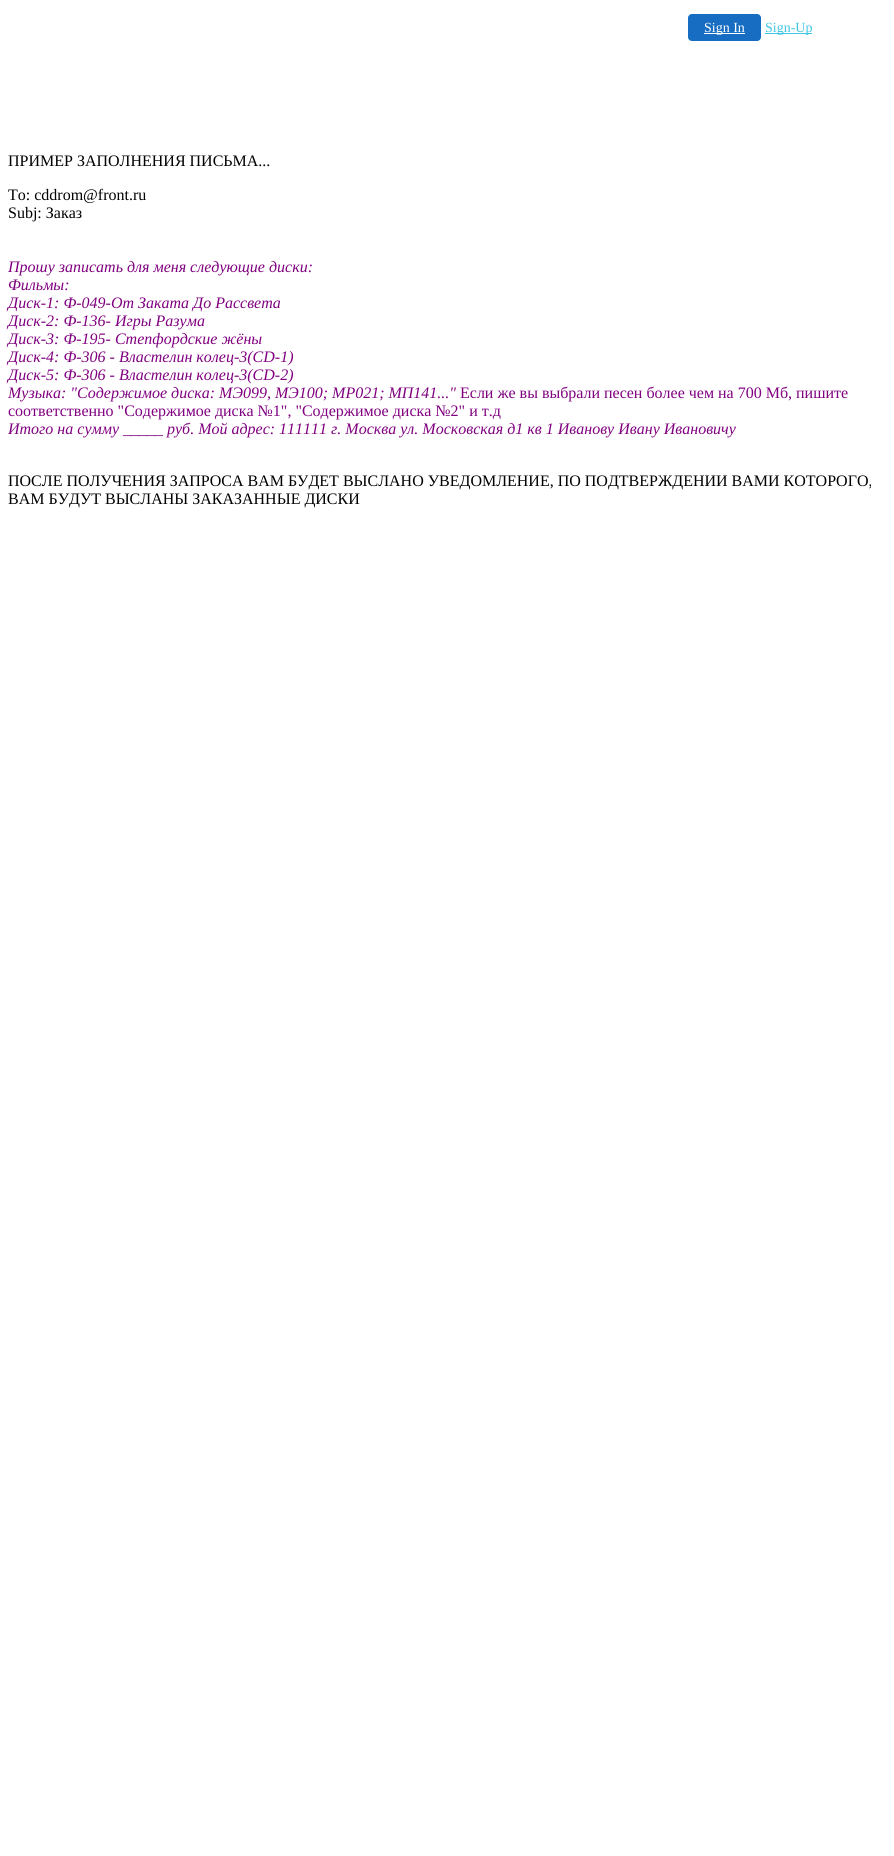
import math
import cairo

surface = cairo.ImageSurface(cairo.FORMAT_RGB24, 894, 1856)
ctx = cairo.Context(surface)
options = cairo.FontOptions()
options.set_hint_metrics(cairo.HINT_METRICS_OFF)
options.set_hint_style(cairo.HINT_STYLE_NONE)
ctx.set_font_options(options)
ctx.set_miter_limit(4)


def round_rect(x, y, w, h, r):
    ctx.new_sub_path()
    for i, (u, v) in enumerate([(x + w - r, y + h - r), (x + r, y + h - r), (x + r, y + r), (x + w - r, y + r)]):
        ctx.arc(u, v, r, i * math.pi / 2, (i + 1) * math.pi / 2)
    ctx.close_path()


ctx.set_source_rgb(1, 1, 1)
ctx.paint()
ctx.set_source_rgb(0.086, 0.427, 0.761)
round_rect(688.5, 14.5, 72, 26, 3.5)
ctx.fill_preserve()
ctx.set_line_width(1)
ctx.stroke()
ctx.set_source_rgb(1, 1, 1)
ctx.rectangle(704, 33, 41, 1)
ctx.fill()
ctx.select_font_face("Liberation Serif")
ctx.set_font_size(14)
ctx.move_to(704, 32)
ctx.show_text("Sign In")
ctx.set_source_rgb(0.255, 0.773, 0.894)
ctx.rectangle(765, 33, 47, 1)
ctx.fill()
ctx.move_to(765, 32)
ctx.show_text("Sign-Up")
ctx.set_font_size(16)
ctx.set_source_rgb(0, 0, 0)
ctx.move_to(8, 166)
ctx.show_text("ПРИМЕР ЗАПОЛНЕНИЯ ПИСЬМА...")
ctx.move_to(8, 200)
ctx.show_text("Тo: cddrom@front.ru")
ctx.move_to(8, 218)
ctx.show_text("Subj: Заказ")
ctx.select_font_face("Liberation Serif", cairo.FONT_SLANT_ITALIC)
ctx.set_source_rgb(0.502, 0, 0.502)
ctx.move_to(8, 272)
ctx.show_text("Прошу записать для меня следующие диски:")
ctx.move_to(8, 290)
ctx.show_text("Фильмы:")
ctx.move_to(8, 308)
ctx.show_text("Диск-1: Ф-049-От Заката До Рассвета")
ctx.move_to(8, 326)
ctx.show_text("Диск-2: Ф-136- Игры Разума")
ctx.move_to(8, 344)
ctx.show_text("Диск-3: Ф-195- Степфордские жёны")
ctx.move_to(8, 362)
ctx.show_text("Диск-4: Ф-306 - Властелин колец-3(CD-1)")
ctx.move_to(8, 380)
ctx.show_text("Диск-5: Ф-306 - Властелин колец-3(СD-2)")
ctx.move_to(8, 398)
ctx.show_text("Музыка: \"Содержимое диска: МЭ099, МЭ100; МР021; МП141...\"")
ctx.select_font_face("Liberation Serif")
ctx.move_to(460, 398)
ctx.show_text("Если же вы выбрали песен более чем на 700 Мб, пишите")
ctx.move_to(8, 416)
ctx.show_text("соответственно \"Содержимое диска №1\", \"Содержимое диска №2\" и т.д")
ctx.select_font_face("Liberation Serif", cairo.FONT_SLANT_ITALIC)
ctx.move_to(8, 434)
ctx.show_text("Итого на сумму _____ руб. Мой адрес: 111111 г. Москва ул. Московская д1 кв 1 Иванову Ивану Ивановичу")
ctx.select_font_face("Liberation Serif")
ctx.set_source_rgb(0, 0, 0)
ctx.move_to(8, 486)
ctx.show_text("ПОСЛЕ ПОЛУЧЕНИЯ ЗАПРОСА ВАМ БУДЕТ ВЫСЛАНО УВЕДОМЛЕНИЕ, ПО ПОДТВЕРЖДЕНИИ ВАМИ КОТОРОГО,")
ctx.move_to(8, 504)
ctx.show_text("ВАМ БУДУТ ВЫСЛАНЫ ЗАКАЗАННЫЕ ДИСКИ")
surface.write_to_png("page.png")
